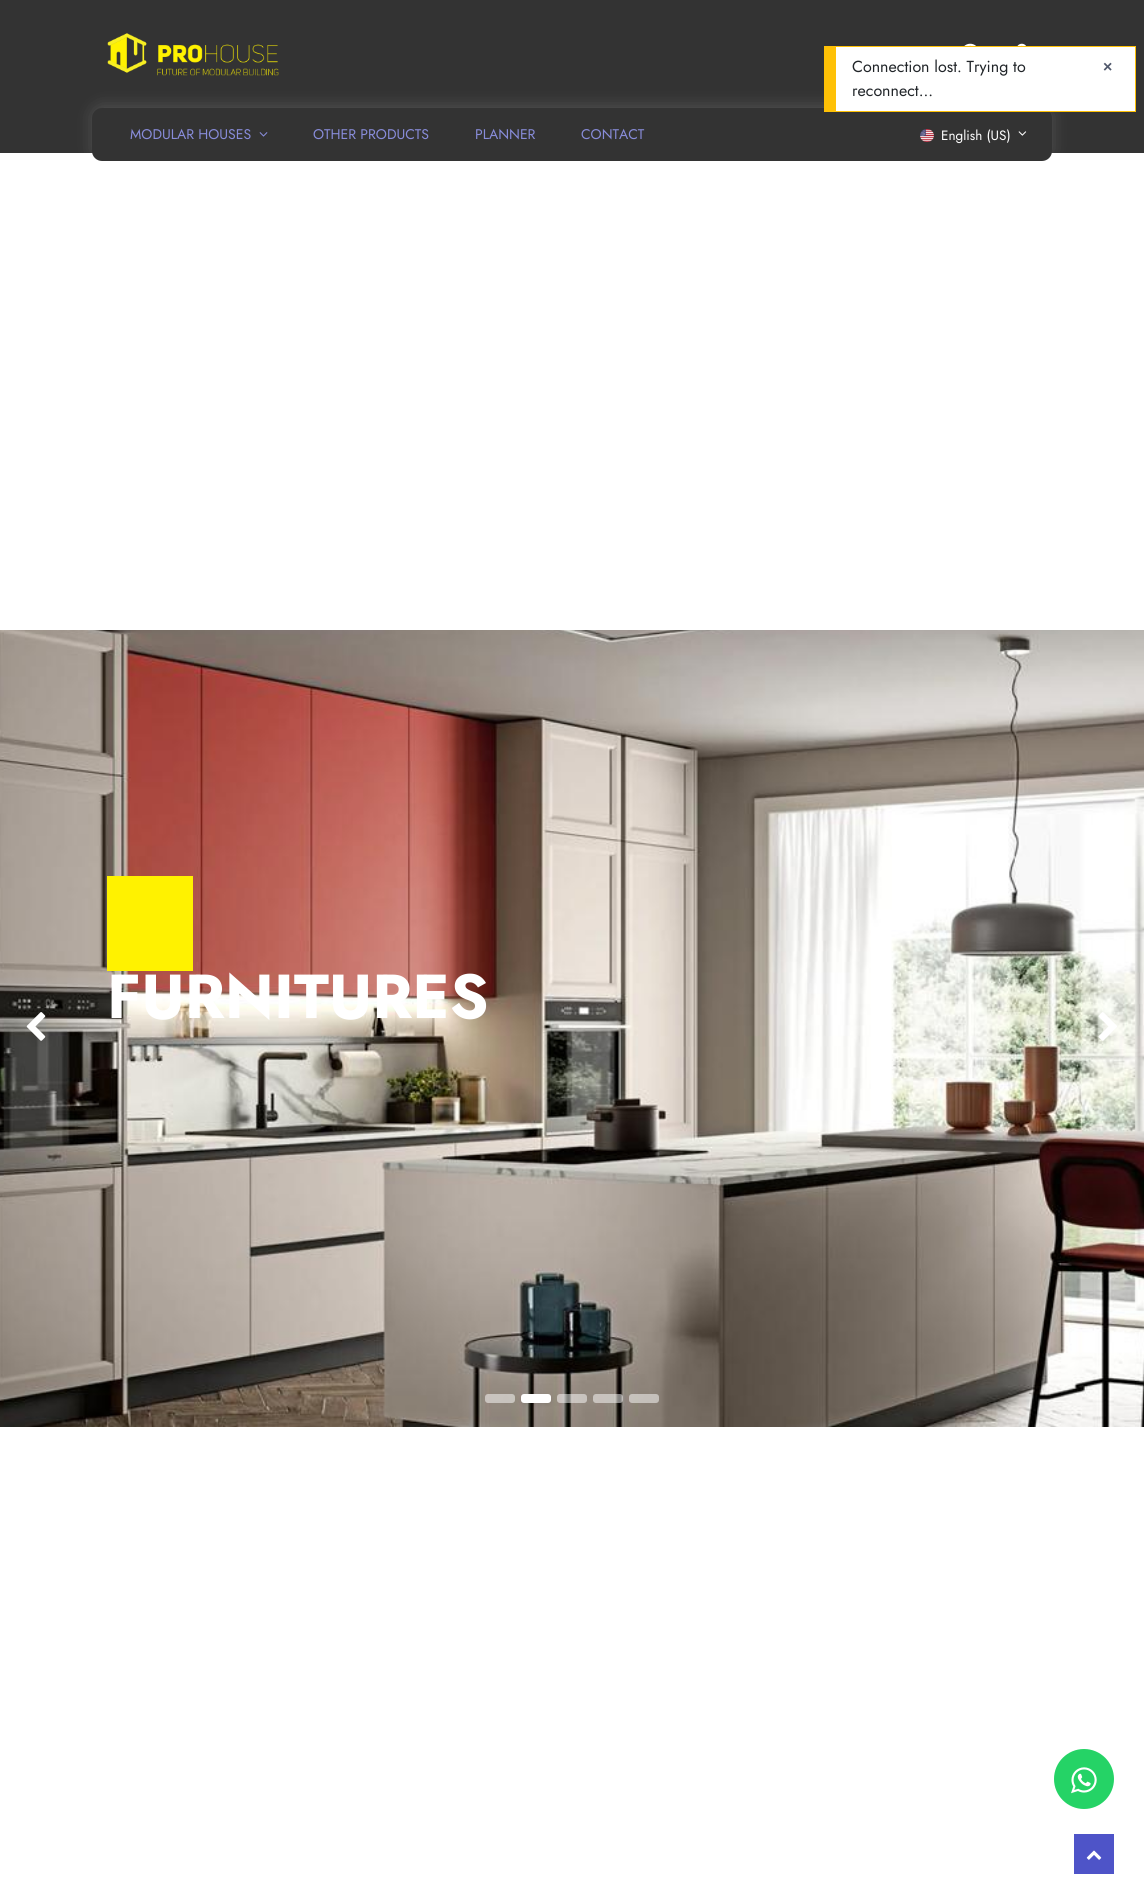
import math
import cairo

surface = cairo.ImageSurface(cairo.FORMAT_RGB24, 1144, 1904)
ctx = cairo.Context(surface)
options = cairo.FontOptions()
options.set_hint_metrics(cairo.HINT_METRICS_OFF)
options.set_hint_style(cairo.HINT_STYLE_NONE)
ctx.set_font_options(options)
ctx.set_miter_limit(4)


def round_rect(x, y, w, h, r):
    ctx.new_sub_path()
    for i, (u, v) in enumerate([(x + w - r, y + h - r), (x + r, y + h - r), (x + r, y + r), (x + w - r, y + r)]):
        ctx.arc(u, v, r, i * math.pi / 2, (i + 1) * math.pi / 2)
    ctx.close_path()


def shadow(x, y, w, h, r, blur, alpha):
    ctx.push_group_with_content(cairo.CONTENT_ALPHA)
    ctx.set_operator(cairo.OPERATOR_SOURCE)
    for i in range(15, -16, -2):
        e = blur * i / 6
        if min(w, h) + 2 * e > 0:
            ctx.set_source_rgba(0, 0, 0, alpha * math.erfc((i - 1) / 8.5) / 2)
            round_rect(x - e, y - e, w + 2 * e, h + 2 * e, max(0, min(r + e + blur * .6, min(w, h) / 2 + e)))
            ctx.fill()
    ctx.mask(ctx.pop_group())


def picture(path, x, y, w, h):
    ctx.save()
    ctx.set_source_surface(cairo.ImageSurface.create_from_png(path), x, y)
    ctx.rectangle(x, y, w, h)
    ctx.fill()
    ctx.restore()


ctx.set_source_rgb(1, 1, 1)
ctx.paint()
ctx.set_source_rgb(0, 0, 0)
shadow(0, 2, 1144, 153, 0, 2, 0.07)
ctx.set_source_rgb(1, 1, 1)
shadow(-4, -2, 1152, 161, 0, 2, 1)
ctx.set_source_rgb(0.2, 0.2, 0.2)
ctx.rectangle(0, 0, 1144, 153)
ctx.fill()
ctx.set_source_rgb(1, 1, 1)
shadow(92, 106, 960, 53, 10, 8, 0.15)
ctx.set_source_rgb(0.2, 0.2, 0.2)
round_rect(92, 108, 960, 53, 10)
ctx.fill()
ctx.set_source_rgb(1, 1, 1)
ctx.rectangle(836, 47, 299, 64)
ctx.fill()
ctx.set_source_rgb(1, 0.757, 0.027)
ctx.rectangle(836, 46, 300, 1)
ctx.fill()
ctx.rectangle(1135, 46, 1, 66)
ctx.fill()
ctx.rectangle(836, 111, 300, 1)
ctx.fill()
ctx.rectangle(824, 46, 12, 66)
ctx.fill()
ctx.select_font_face("Jost")
ctx.set_font_size(16)
ctx.set_source_rgb(0.129, 0.145, 0.161)
ctx.move_to(852, 72)
ctx.show_text("Connection lost. Trying to")
ctx.move_to(852, 96)
ctx.show_text("reconnect...")
ctx.select_font_face("Liberation Sans", cairo.FONT_SLANT_NORMAL, cairo.FONT_WEIGHT_BOLD)
ctx.set_source_rgb(0.318, 0.349, 0.424)
ctx.move_to(1103, 72)
ctx.show_text("×")
picture("img1.png", 107, 33, 172, 43)
picture("img2.png", 964, 43, 12, 3)
picture("img3.png", 1017, 43, 9, 3)
ctx.select_font_face("Jost")
ctx.set_font_size(14)
ctx.set_source_rgb(0.533, 0.549, 0.855)
ctx.move_to(130, 139)
ctx.show_text("MODULAR HOUSES")
picture("img4.png", 259, 132, 9, 5)
ctx.move_to(313, 139)
ctx.show_text("OTHER PRODUCTS")
ctx.move_to(475, 139)
ctx.show_text("PLANNER")
ctx.move_to(581, 139)
ctx.show_text("CONTACT")
picture("img5.png", 920, 129, 14, 13)
ctx.set_font_size(13.5)
ctx.set_source_rgb(1, 1, 1)
ctx.move_to(941, 140)
ctx.show_text("English (US)")
picture("img6.png", 1018, 131, 9, 5)
picture("img7.png", 0, 630, 1144, 797)
ctx.set_source_rgb(1, 0.949, 0)
ctx.rectangle(107, 876, 86, 95)
ctx.fill()
ctx.select_font_face("Jost", cairo.FONT_SLANT_NORMAL, cairo.FONT_WEIGHT_BOLD)
ctx.set_font_size(62)
ctx.set_source_rgb(1, 1, 1)
ctx.move_to(107, 1018)
ctx.show_text("FURNITURES")
picture("img8.png", 26, 1012, 20, 29)
picture("img9.png", 1098, 1012, 19, 29)
ctx.set_source_rgb(0, 0, 0)
shadow(521, 1396, 30, 9, 3, 2, 0.07)
ctx.set_source_rgba(1, 1, 1, 0.5)
round_rect(485, 1394, 30, 9, 3)
ctx.fill()
ctx.set_source_rgb(1, 1, 1)
round_rect(521, 1394, 30, 9, 3)
ctx.fill()
ctx.set_source_rgba(1, 1, 1, 0.5)
round_rect(557, 1394, 30, 9, 3)
ctx.fill()
round_rect(593, 1394, 30, 9, 3)
ctx.fill()
round_rect(629, 1394, 30, 9, 3)
ctx.fill()
ctx.set_source_rgb(0.145, 0.827, 0.4)
ctx.arc(1084, 1779, 30, 0, 2 * math.pi)
ctx.fill()
picture("img10.png", 1071, 1767, 26, 27)
ctx.set_source_rgb(0.306, 0.329, 0.784)
ctx.rectangle(1074, 1834, 40, 40)
ctx.fill()
picture("img11.png", 1086, 1850, 16, 10)
surface.write_to_png("page.png")
